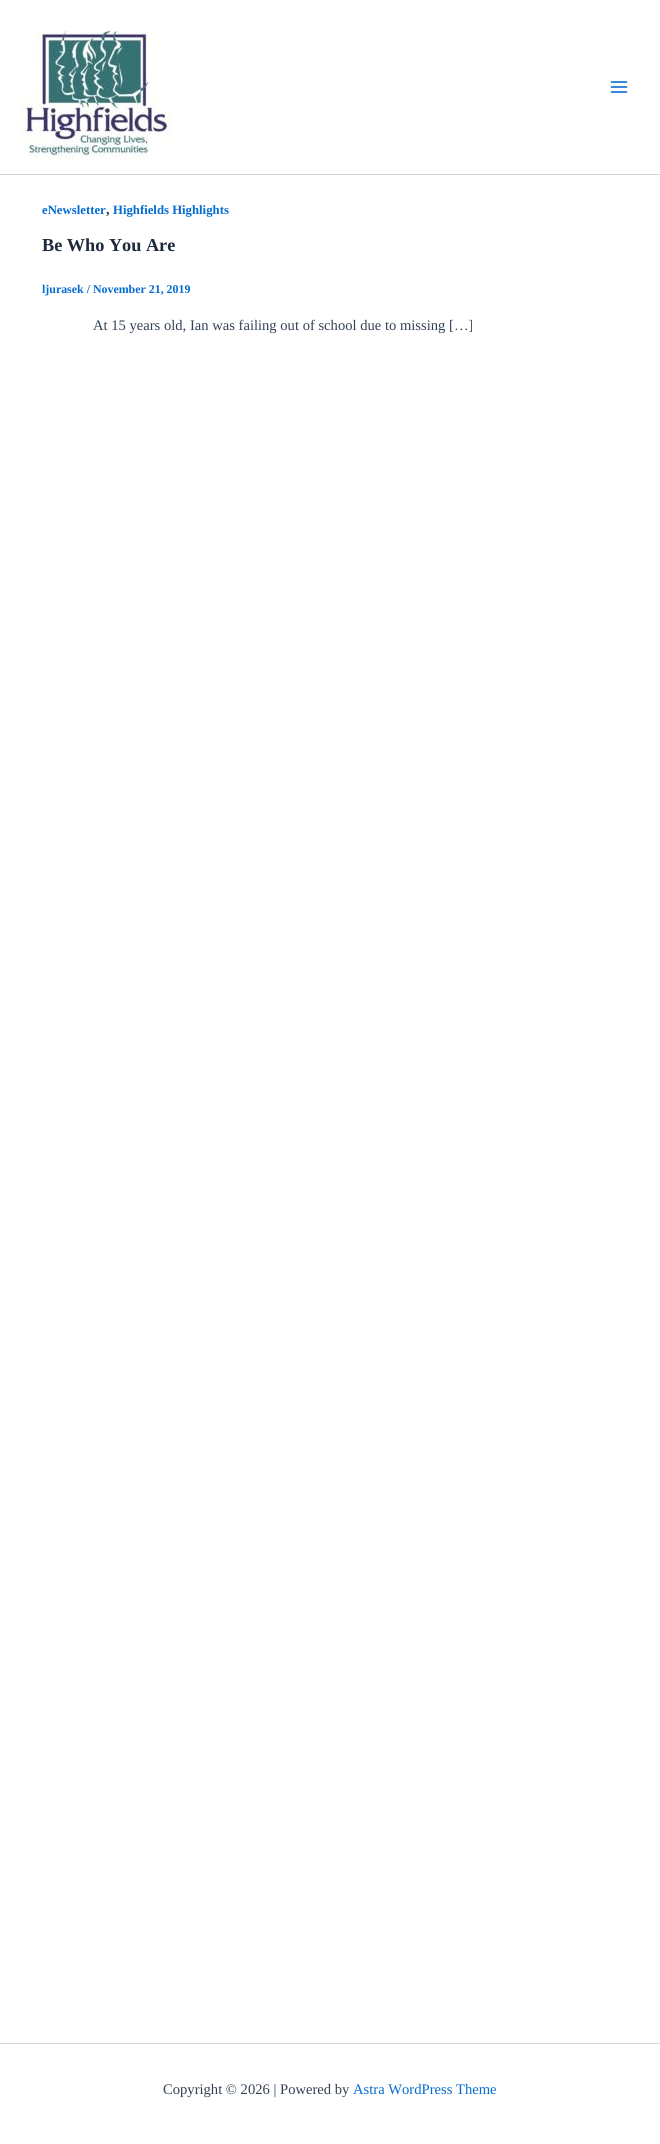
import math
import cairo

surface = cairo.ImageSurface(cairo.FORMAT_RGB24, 660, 2144)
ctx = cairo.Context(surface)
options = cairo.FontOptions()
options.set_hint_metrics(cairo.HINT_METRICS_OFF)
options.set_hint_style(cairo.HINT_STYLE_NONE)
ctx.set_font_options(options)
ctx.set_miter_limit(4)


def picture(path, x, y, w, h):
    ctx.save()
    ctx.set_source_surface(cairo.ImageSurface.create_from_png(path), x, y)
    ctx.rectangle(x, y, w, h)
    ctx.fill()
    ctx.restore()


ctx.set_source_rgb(1, 1, 1)
ctx.paint()
ctx.set_source_rgb(0.82, 0.835, 0.859)
ctx.rectangle(0, 174, 660, 1)
ctx.fill()
picture("img1.png", 20, 30, 152, 129)
picture("img2.png", 610, 81, 18, 12)
ctx.select_font_face("Liberation Serif", cairo.FONT_SLANT_NORMAL, cairo.FONT_WEIGHT_BOLD)
ctx.set_font_size(12.75)
ctx.set_source_rgb(0.016, 0.42, 0.824)
ctx.move_to(42, 214)
ctx.show_text("eNewsletter")
ctx.set_font_size(14.6)
ctx.set_source_rgb(0.2, 0.255, 0.333)
ctx.move_to(106, 214)
ctx.show_text(",")
ctx.set_font_size(12.75)
ctx.set_source_rgb(0.016, 0.42, 0.824)
ctx.move_to(113, 214)
ctx.show_text("Highfields Highlights")
ctx.set_font_size(18.25)
ctx.set_source_rgb(0.118, 0.161, 0.231)
ctx.move_to(42, 251)
ctx.show_text("Be Who You Are")
ctx.set_font_size(11.9)
ctx.set_source_rgb(0.016, 0.42, 0.824)
ctx.move_to(42, 293)
ctx.show_text("ljurasek / November 21, 2019")
ctx.select_font_face("Liberation Serif")
ctx.set_font_size(14.6)
ctx.set_source_rgb(0.2, 0.255, 0.333)
ctx.move_to(93, 330)
ctx.show_text("At 15 years old, Ian was failing out of school due to missing […]")
ctx.set_source_rgb(0.82, 0.835, 0.859)
ctx.rectangle(0, 2043, 660, 1)
ctx.fill()
ctx.set_source_rgb(0.2, 0.255, 0.333)
ctx.move_to(163, 2094)
ctx.show_text("Copyright © 2026 | Powered by")
ctx.set_source_rgb(0.016, 0.42, 0.824)
ctx.move_to(353, 2094)
ctx.show_text("Astra WordPress Theme")
surface.write_to_png("page.png")
